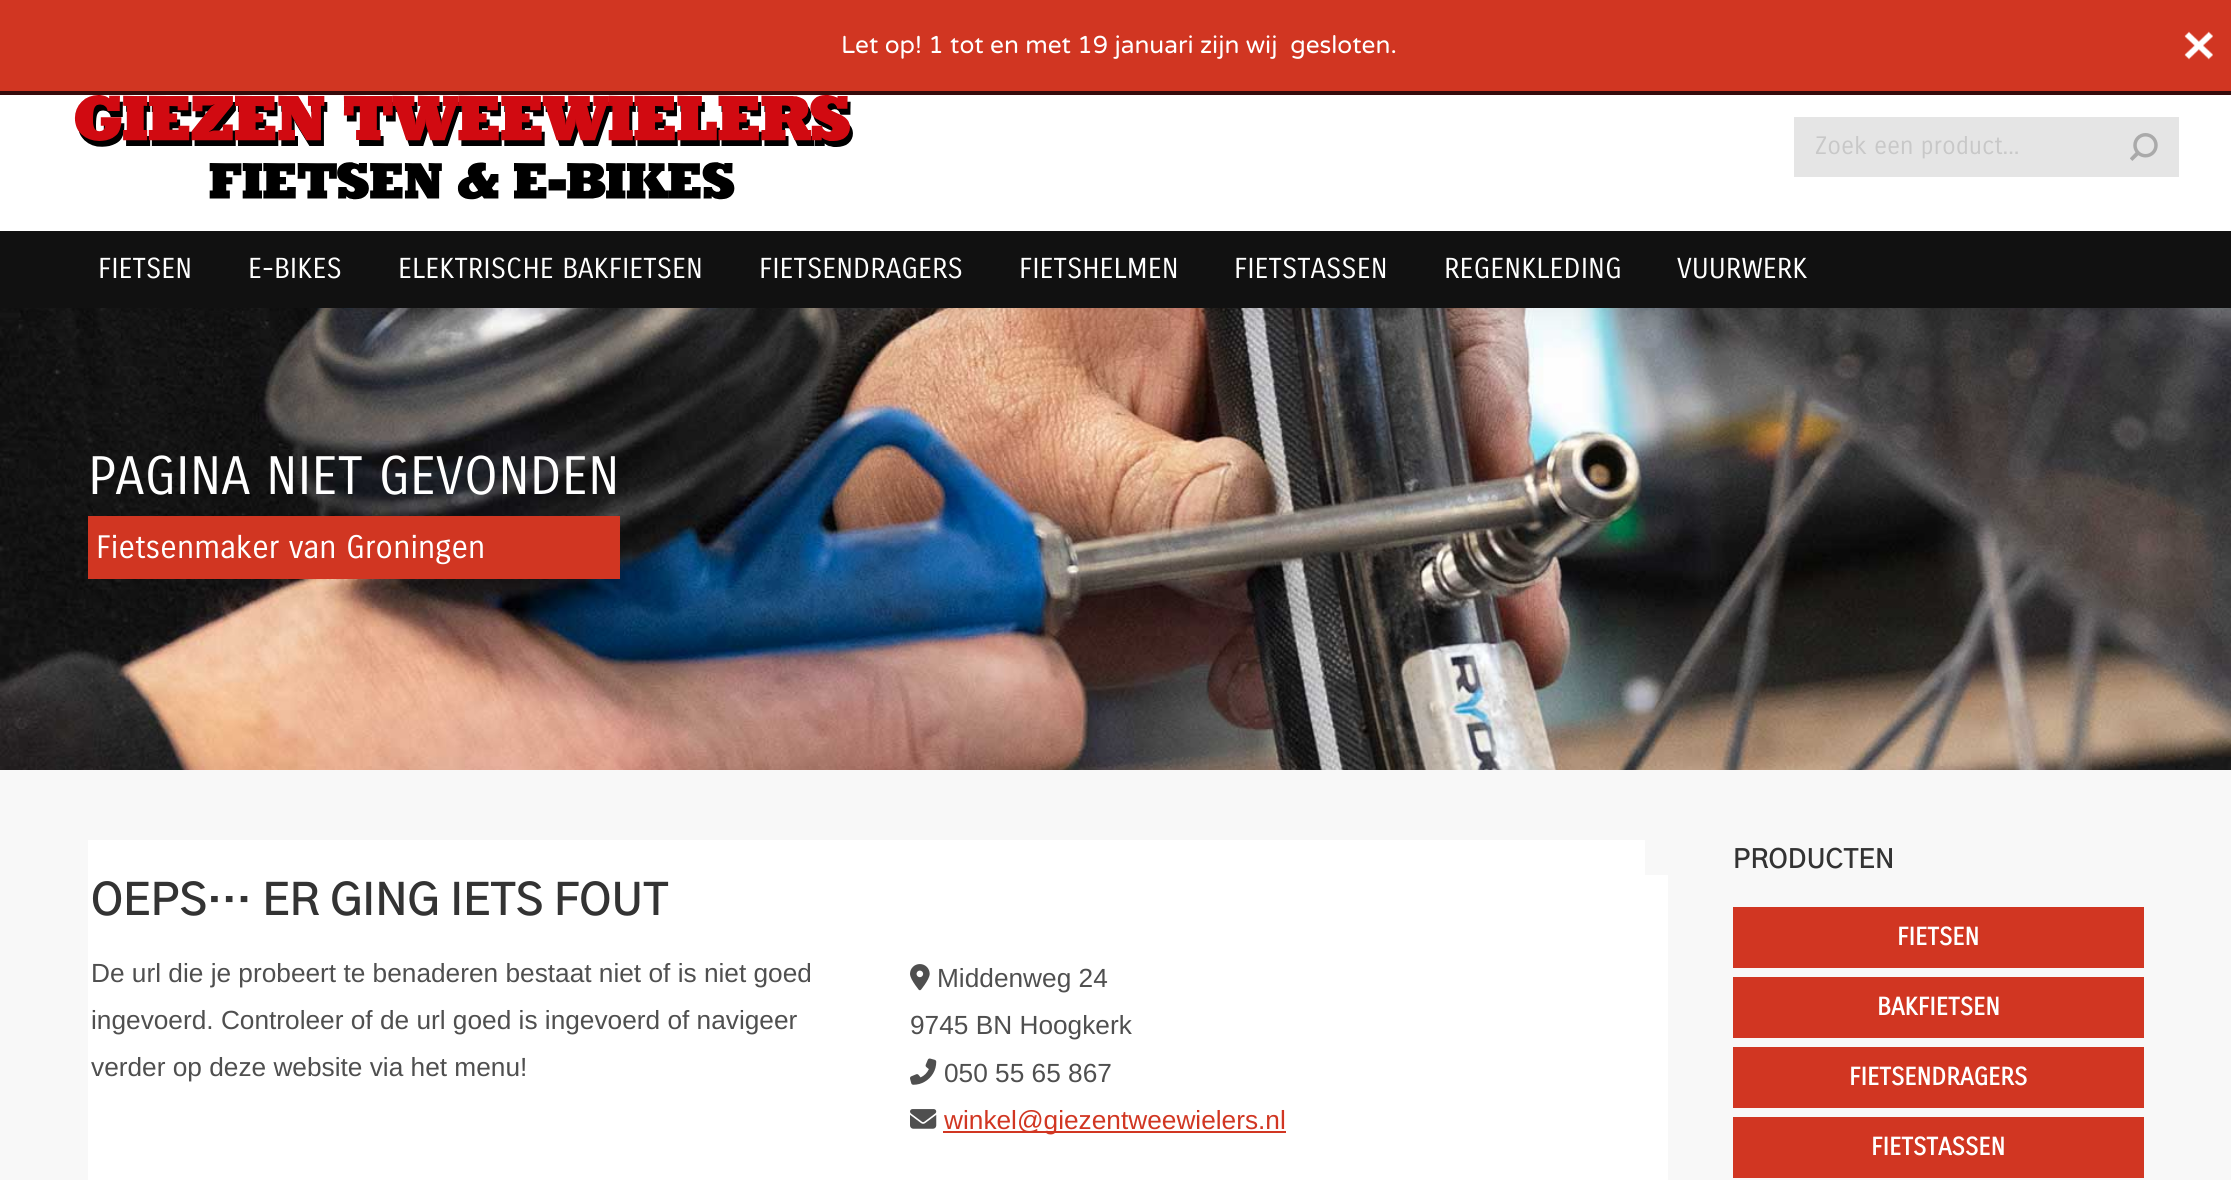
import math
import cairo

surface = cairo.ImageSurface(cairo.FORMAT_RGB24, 2231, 1180)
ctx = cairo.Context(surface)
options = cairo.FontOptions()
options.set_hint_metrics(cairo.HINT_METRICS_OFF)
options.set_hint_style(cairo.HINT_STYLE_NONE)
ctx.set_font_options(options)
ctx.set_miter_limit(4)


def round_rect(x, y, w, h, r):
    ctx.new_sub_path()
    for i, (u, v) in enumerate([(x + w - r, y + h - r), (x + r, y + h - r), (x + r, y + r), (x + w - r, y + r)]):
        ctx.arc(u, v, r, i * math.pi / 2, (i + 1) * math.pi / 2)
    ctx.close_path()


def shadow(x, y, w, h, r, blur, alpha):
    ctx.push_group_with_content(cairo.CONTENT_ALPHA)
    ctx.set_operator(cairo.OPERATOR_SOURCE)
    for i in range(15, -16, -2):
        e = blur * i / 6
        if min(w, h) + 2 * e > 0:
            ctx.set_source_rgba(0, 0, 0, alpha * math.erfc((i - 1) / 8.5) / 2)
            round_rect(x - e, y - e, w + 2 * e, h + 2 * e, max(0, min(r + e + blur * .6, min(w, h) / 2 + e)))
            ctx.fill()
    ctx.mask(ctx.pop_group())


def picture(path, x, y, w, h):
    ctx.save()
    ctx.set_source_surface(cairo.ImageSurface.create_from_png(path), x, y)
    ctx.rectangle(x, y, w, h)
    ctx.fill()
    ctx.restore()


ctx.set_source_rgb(0.969, 0.969, 0.969)
ctx.paint()
picture("img4.png", 0, 308, 2231, 462)
ctx.set_source_rgb(0, 0, 0)
shadow(-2, -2, 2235, 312, 0, 13, 0.07)
ctx.set_source_rgb(0.208, 0.043, 0.043)
ctx.rectangle(0, 91, 2231, 4)
ctx.fill()
ctx.set_source_rgb(0.82, 0.212, 0.133)
ctx.rectangle(0, 0, 2231, 91)
ctx.fill()
ctx.select_font_face("Varela Round")
ctx.set_font_size(24.5)
ctx.set_source_rgb(1, 1, 1)
ctx.move_to(841, 53)
ctx.show_text("Let op! 1 tot en met 19 januari zijn wij  gesloten.")
picture("img1.png", 2184, 31, 29, 29)
ctx.rectangle(0, 95, 2231, 136)
ctx.fill()
picture("img2.png", 74, 95, 779, 105)
ctx.set_source_rgb(0.898, 0.898, 0.898)
ctx.rectangle(1794, 117, 385, 60)
ctx.fill()
ctx.select_font_face("Carrois Gothic")
ctx.set_source_rgb(0.784, 0.784, 0.784)
ctx.move_to(1815, 154)
ctx.show_text("Zoek een product...")
picture("img3.png", 2130, 133, 28, 28)
ctx.set_source_rgb(0.067, 0.067, 0.067)
ctx.rectangle(0, 231, 2231, 77)
ctx.fill()
ctx.set_font_size(28)
ctx.set_source_rgb(1, 1, 1)
ctx.move_to(98, 278)
ctx.show_text("FIETSEN")
ctx.move_to(248, 278)
ctx.show_text("E-BIKES")
ctx.move_to(398, 278)
ctx.show_text("ELEKTRISCHE BAKFIETSEN")
ctx.move_to(759, 278)
ctx.show_text("FIETSENDRAGERS")
ctx.move_to(1019, 278)
ctx.show_text("FIETSHELMEN")
ctx.move_to(1234, 278)
ctx.show_text("FIETSTASSEN")
ctx.move_to(1444, 278)
ctx.show_text("REGENKLEDING")
ctx.move_to(1677, 278)
ctx.show_text("VUURWERK")
ctx.set_font_size(52.5)
ctx.move_to(88, 494)
ctx.show_text("PAGINA NIET GEVONDEN")
ctx.set_source_rgb(0.82, 0.212, 0.133)
ctx.rectangle(88, 516, 532, 63)
ctx.fill()
ctx.set_font_size(31.5)
ctx.set_source_rgb(1, 1, 1)
ctx.move_to(96, 558)
ctx.show_text("Fietsenmaker van Groningen")
ctx.rectangle(88, 840, 1557, 340)
ctx.fill()
ctx.select_font_face("Gothic A1 SemiBold")
ctx.set_font_size(43.75)
ctx.set_source_rgb(0.2, 0.2, 0.2)
ctx.move_to(91, 915)
ctx.show_text("OEPS… ER GING IETS FOUT")
ctx.select_font_face("Liberation Sans")
ctx.set_font_size(26.25)
ctx.set_source_rgb(0.31, 0.31, 0.31)
ctx.move_to(91, 982)
ctx.show_text("De url die je probeert te benaderen bestaat niet of is niet goed")
ctx.move_to(91, 1029)
ctx.show_text("ingevoerd. Controleer of de url goed is ingevoerd of navigeer")
ctx.move_to(91, 1076)
ctx.show_text("verder op deze website via het menu!")
ctx.set_source_rgb(1, 1, 1)
ctx.rectangle(1645, 875, 23, 305)
ctx.fill()
picture("img5.png", 910, 964, 20, 27)
ctx.set_source_rgb(0.31, 0.31, 0.31)
ctx.move_to(937, 987)
ctx.show_text("Middenweg 24")
ctx.move_to(910, 1034)
ctx.show_text("9745 BN Hoogkerk")
picture("img6.png", 910, 1058, 27, 27)
ctx.move_to(944, 1082)
ctx.show_text("050 55 65 867")
picture("img7.png", 910, 1109, 27, 20)
ctx.set_source_rgb(0.82, 0.212, 0.133)
ctx.rectangle(943, 1131, 343, 2)
ctx.fill()
ctx.move_to(944, 1129)
ctx.show_text("winkel@giezentweewielers.nl")
ctx.select_font_face("Gothic A1 SemiBold")
ctx.set_source_rgb(0.2, 0.2, 0.2)
ctx.move_to(1733, 868)
ctx.show_text("PRODUCTEN")
ctx.set_source_rgb(0.82, 0.212, 0.133)
ctx.rectangle(1733, 907, 411, 61)
ctx.fill()
ctx.select_font_face("Carrois Gothic", cairo.FONT_SLANT_NORMAL, cairo.FONT_WEIGHT_BOLD)
ctx.set_font_size(24.5)
ctx.set_source_rgb(1, 1, 1)
ctx.move_to(1897, 945)
ctx.show_text("FIETSEN")
ctx.set_source_rgb(0.82, 0.212, 0.133)
ctx.rectangle(1733, 977, 411, 61)
ctx.fill()
ctx.set_source_rgb(1, 1, 1)
ctx.move_to(1877, 1015)
ctx.show_text("BAKFIETSEN")
ctx.set_source_rgb(0.82, 0.212, 0.133)
ctx.rectangle(1733, 1047, 411, 61)
ctx.fill()
ctx.set_source_rgb(1, 1, 1)
ctx.move_to(1849, 1085)
ctx.show_text("FIETSENDRAGERS")
ctx.set_source_rgb(0.82, 0.212, 0.133)
ctx.rectangle(1733, 1117, 411, 61)
ctx.fill()
ctx.set_source_rgb(1, 1, 1)
ctx.move_to(1871, 1155)
ctx.show_text("FIETSTASSEN")
surface.write_to_png("page.png")
